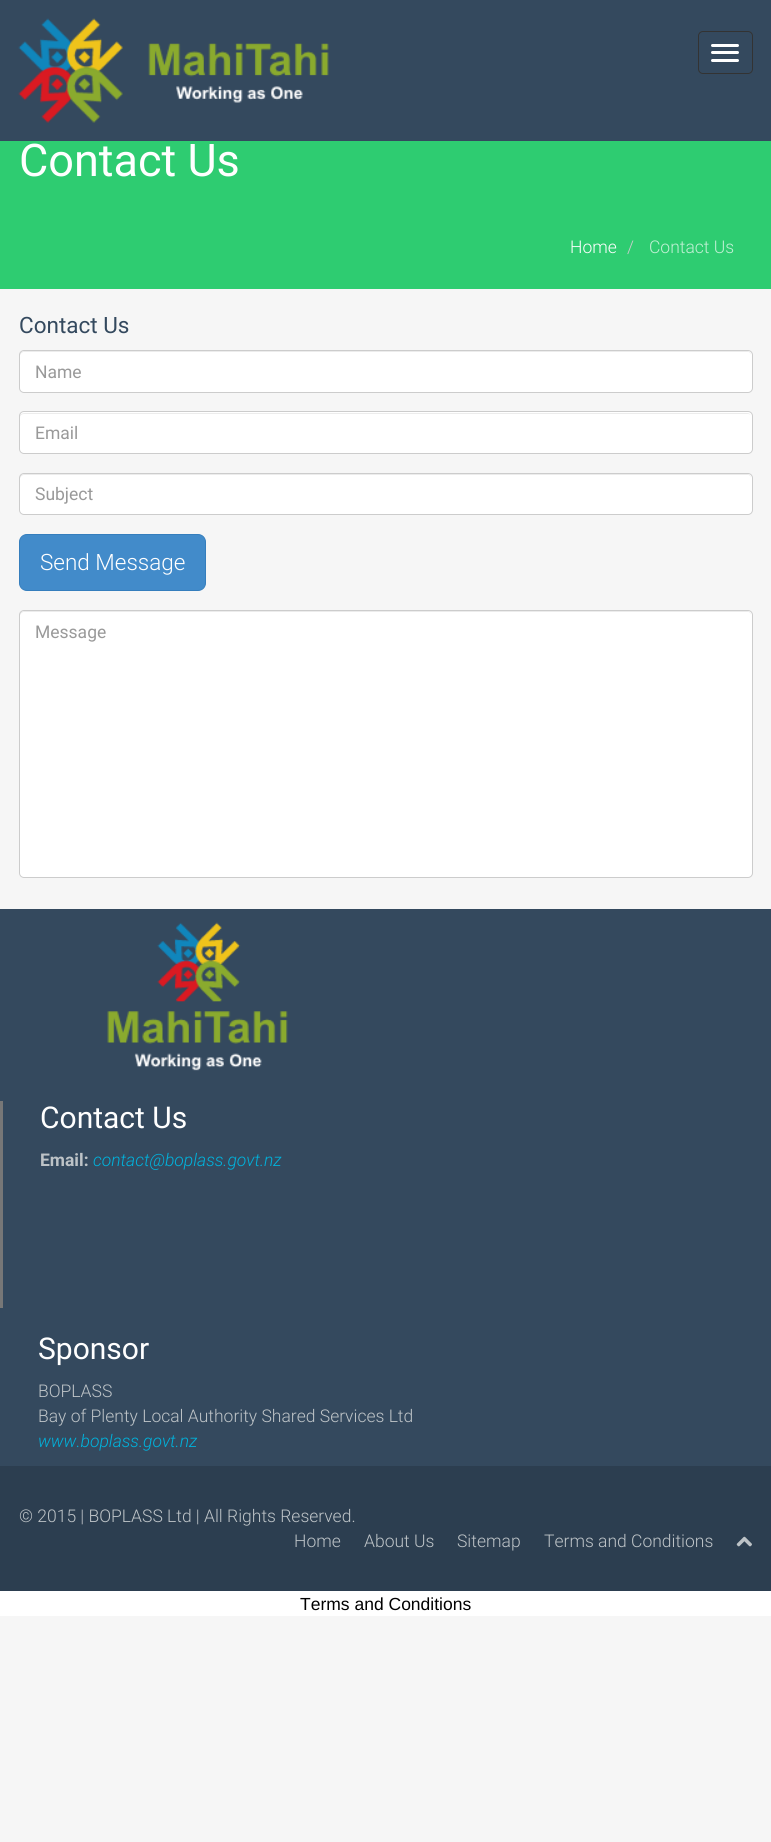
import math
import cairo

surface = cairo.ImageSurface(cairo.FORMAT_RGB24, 771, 1842)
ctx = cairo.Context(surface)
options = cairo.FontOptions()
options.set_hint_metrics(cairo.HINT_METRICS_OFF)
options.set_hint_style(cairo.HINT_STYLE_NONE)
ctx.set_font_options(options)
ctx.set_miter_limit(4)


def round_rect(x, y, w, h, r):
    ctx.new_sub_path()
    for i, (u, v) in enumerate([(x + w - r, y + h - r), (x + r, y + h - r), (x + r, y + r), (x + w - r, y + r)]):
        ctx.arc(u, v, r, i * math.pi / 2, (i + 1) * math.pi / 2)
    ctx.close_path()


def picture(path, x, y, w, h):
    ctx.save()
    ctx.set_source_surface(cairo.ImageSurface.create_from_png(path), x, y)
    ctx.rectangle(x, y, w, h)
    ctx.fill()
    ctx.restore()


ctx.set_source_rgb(0.961, 0.961, 0.961)
ctx.paint()
ctx.set_source_rgb(0.204, 0.286, 0.369)
ctx.rectangle(0, 0, 771, 141)
ctx.fill()
picture("img1.png", 18, 18, 311, 105)
round_rect(698.5, 31.5, 54, 42, 4.5)
ctx.set_source_rgb(0.2, 0.2, 0.2)
ctx.set_line_width(1)
ctx.stroke()
ctx.set_source_rgb(1, 1, 1)
round_rect(711, 44, 28, 3, 1.5)
ctx.fill()
round_rect(711, 51, 28, 3, 1.5)
ctx.fill()
round_rect(711, 59, 28, 3, 1.5)
ctx.fill()
ctx.set_source_rgb(0.18, 0.8, 0.443)
ctx.rectangle(0, 141, 771, 148)
ctx.fill()
ctx.select_font_face("Roboto")
ctx.set_font_size(45)
ctx.set_source_rgb(1, 1, 1)
ctx.move_to(19, 176)
ctx.show_text("Contact Us")
ctx.select_font_face("Roboto Light")
ctx.set_font_size(17.5)
ctx.move_to(570, 253)
ctx.show_text("Home")
ctx.set_source_rgb(0.8, 0.8, 0.8)
ctx.move_to(627, 253)
ctx.show_text("/")
ctx.set_source_rgb(0.753, 0.941, 0.831)
ctx.move_to(649, 253)
ctx.show_text("Contact Us")
ctx.select_font_face("Roboto")
ctx.set_font_size(22.5)
ctx.set_source_rgb(0.204, 0.286, 0.369)
ctx.move_to(19, 333)
ctx.show_text("Contact Us")
ctx.set_source_rgb(1, 1, 1)
round_rect(19, 350, 734, 43, 5)
ctx.fill()
ctx.set_source_rgb(0.925, 0.925, 0.925)
ctx.new_path()
ctx.move_to(24, 352)
ctx.line_to(748, 352)
ctx.curve_to(750, 352, 751, 354, 751, 356)
ctx.curve_to(751, 353, 750, 351, 747, 351)
ctx.line_to(24, 351)
ctx.line_to(21, 352)
ctx.line_to(20, 353)
ctx.line_to(20, 356)
ctx.curve_to(20, 354, 22, 352, 24, 352)
ctx.close_path()
ctx.fill()
round_rect(19.5, 350.5, 733, 42, 4.5)
ctx.set_source_rgb(0.8, 0.8, 0.8)
ctx.stroke()
ctx.set_font_size(17.5)
ctx.set_source_rgb(0.6, 0.6, 0.6)
ctx.move_to(35, 378)
ctx.show_text("Name")
ctx.set_source_rgb(1, 1, 1)
round_rect(19, 411, 734, 43, 5)
ctx.fill()
ctx.set_source_rgb(0.925, 0.925, 0.925)
ctx.new_path()
ctx.move_to(24, 414)
ctx.line_to(748, 414)
ctx.curve_to(750, 414, 751, 415, 751, 418)
ctx.curve_to(751, 415, 750, 413, 747, 413)
ctx.line_to(24, 413)
ctx.line_to(21, 414)
ctx.line_to(20, 415)
ctx.line_to(20, 418)
ctx.curve_to(20, 415, 22, 414, 24, 414)
ctx.close_path()
ctx.fill()
round_rect(19.5, 411.5, 733, 42, 4.5)
ctx.set_source_rgb(0.8, 0.8, 0.8)
ctx.stroke()
ctx.set_source_rgb(0.6, 0.6, 0.6)
ctx.move_to(35, 439)
ctx.show_text("Email")
ctx.set_source_rgb(1, 1, 1)
round_rect(19, 473, 734, 42, 5)
ctx.fill()
ctx.set_source_rgb(0.925, 0.925, 0.925)
ctx.new_path()
ctx.move_to(24, 475)
ctx.line_to(748, 475)
ctx.curve_to(750, 475, 751, 477, 751, 479)
ctx.curve_to(751, 476, 750, 474, 747, 474)
ctx.line_to(24, 474)
ctx.line_to(21, 475)
ctx.line_to(20, 476)
ctx.line_to(20, 479)
ctx.curve_to(20, 477, 22, 475, 24, 475)
ctx.close_path()
ctx.fill()
round_rect(19.5, 473.5, 733, 41, 4.5)
ctx.set_source_rgb(0.8, 0.8, 0.8)
ctx.stroke()
ctx.set_source_rgb(0.6, 0.6, 0.6)
ctx.move_to(35, 500)
ctx.show_text("Subject")
ctx.set_source_rgb(0.259, 0.545, 0.792)
round_rect(19.5, 534.5, 186, 56, 7.5)
ctx.fill_preserve()
ctx.set_source_rgb(0.208, 0.494, 0.741)
ctx.stroke()
ctx.select_font_face("Roboto Light")
ctx.set_font_size(22.5)
ctx.set_source_rgb(1, 1, 1)
ctx.move_to(40, 570)
ctx.show_text("Send Message")
round_rect(19, 610, 734, 268, 5)
ctx.fill()
ctx.set_source_rgb(0.925, 0.925, 0.925)
ctx.new_path()
ctx.move_to(24, 612)
ctx.line_to(748, 612)
ctx.curve_to(750, 612, 751, 614, 751, 616)
ctx.curve_to(751, 613, 750, 611, 747, 611)
ctx.line_to(24, 611)
ctx.line_to(21, 612)
ctx.line_to(20, 613)
ctx.line_to(20, 616)
ctx.curve_to(20, 614, 22, 612, 24, 612)
ctx.close_path()
ctx.fill()
round_rect(19.5, 610.5, 733, 267, 4.5)
ctx.set_source_rgb(0.8, 0.8, 0.8)
ctx.stroke()
ctx.select_font_face("Roboto")
ctx.set_font_size(17.5)
ctx.set_source_rgb(0.6, 0.6, 0.6)
ctx.move_to(35, 638)
ctx.show_text("Message")
ctx.set_source_rgb(0.204, 0.286, 0.369)
ctx.rectangle(0, 909, 771, 557)
ctx.fill()
picture("img2.png", 107, 922, 181, 149)
ctx.set_source_rgb(0.467, 0.467, 0.467)
ctx.rectangle(0, 1101, 3, 207)
ctx.fill()
ctx.set_font_size(30)
ctx.set_source_rgb(1, 1, 1)
ctx.move_to(40, 1128)
ctx.show_text("Contact Us")
ctx.select_font_face("Roboto", cairo.FONT_SLANT_NORMAL, cairo.FONT_WEIGHT_BOLD)
ctx.set_font_size(17.5)
ctx.set_source_rgb(0.741, 0.765, 0.78)
ctx.move_to(40, 1166)
ctx.show_text("Email:")
ctx.select_font_face("Roboto Light", cairo.FONT_SLANT_ITALIC)
ctx.set_source_rgb(0, 0.698, 0.863)
ctx.move_to(93, 1166)
ctx.show_text("contact@boplass.govt.nz")
ctx.select_font_face("Roboto")
ctx.set_font_size(30)
ctx.set_source_rgb(1, 1, 1)
ctx.move_to(38, 1359)
ctx.show_text("Sponsor")
ctx.select_font_face("Roboto Light")
ctx.set_font_size(17.5)
ctx.set_source_rgb(0.741, 0.765, 0.78)
ctx.move_to(38, 1397)
ctx.show_text("BOPLASS")
ctx.move_to(38, 1422)
ctx.show_text("Bay of Plenty Local Authority Shared Services Ltd")
ctx.select_font_face("Roboto Light", cairo.FONT_SLANT_ITALIC)
ctx.set_source_rgb(0, 0.698, 0.863)
ctx.move_to(38, 1447)
ctx.show_text("www.boplass.govt.nz")
ctx.set_source_rgb(0.173, 0.243, 0.314)
ctx.rectangle(0, 1466, 771, 125)
ctx.fill()
ctx.select_font_face("Roboto Light")
ctx.set_source_rgb(0.741, 0.765, 0.78)
ctx.move_to(19, 1522)
ctx.show_text("© 2015 | BOPLASS Ltd | All Rights Reserved.")
ctx.move_to(294, 1547)
ctx.show_text("Home")
ctx.move_to(364, 1547)
ctx.show_text("About Us")
ctx.move_to(457, 1547)
ctx.show_text("Sitemap")
ctx.move_to(544, 1547)
ctx.show_text("Terms and Conditions")
picture("img3.png", 736, 1536, 16, 11)
ctx.set_source_rgb(1, 1, 1)
ctx.rectangle(0, 1591, 771, 25)
ctx.fill()
ctx.select_font_face("Liberation Sans")
ctx.set_source_rgb(0, 0, 0)
ctx.move_to(300, 1610)
ctx.show_text("Terms and Conditions")
surface.write_to_png("page.png")
